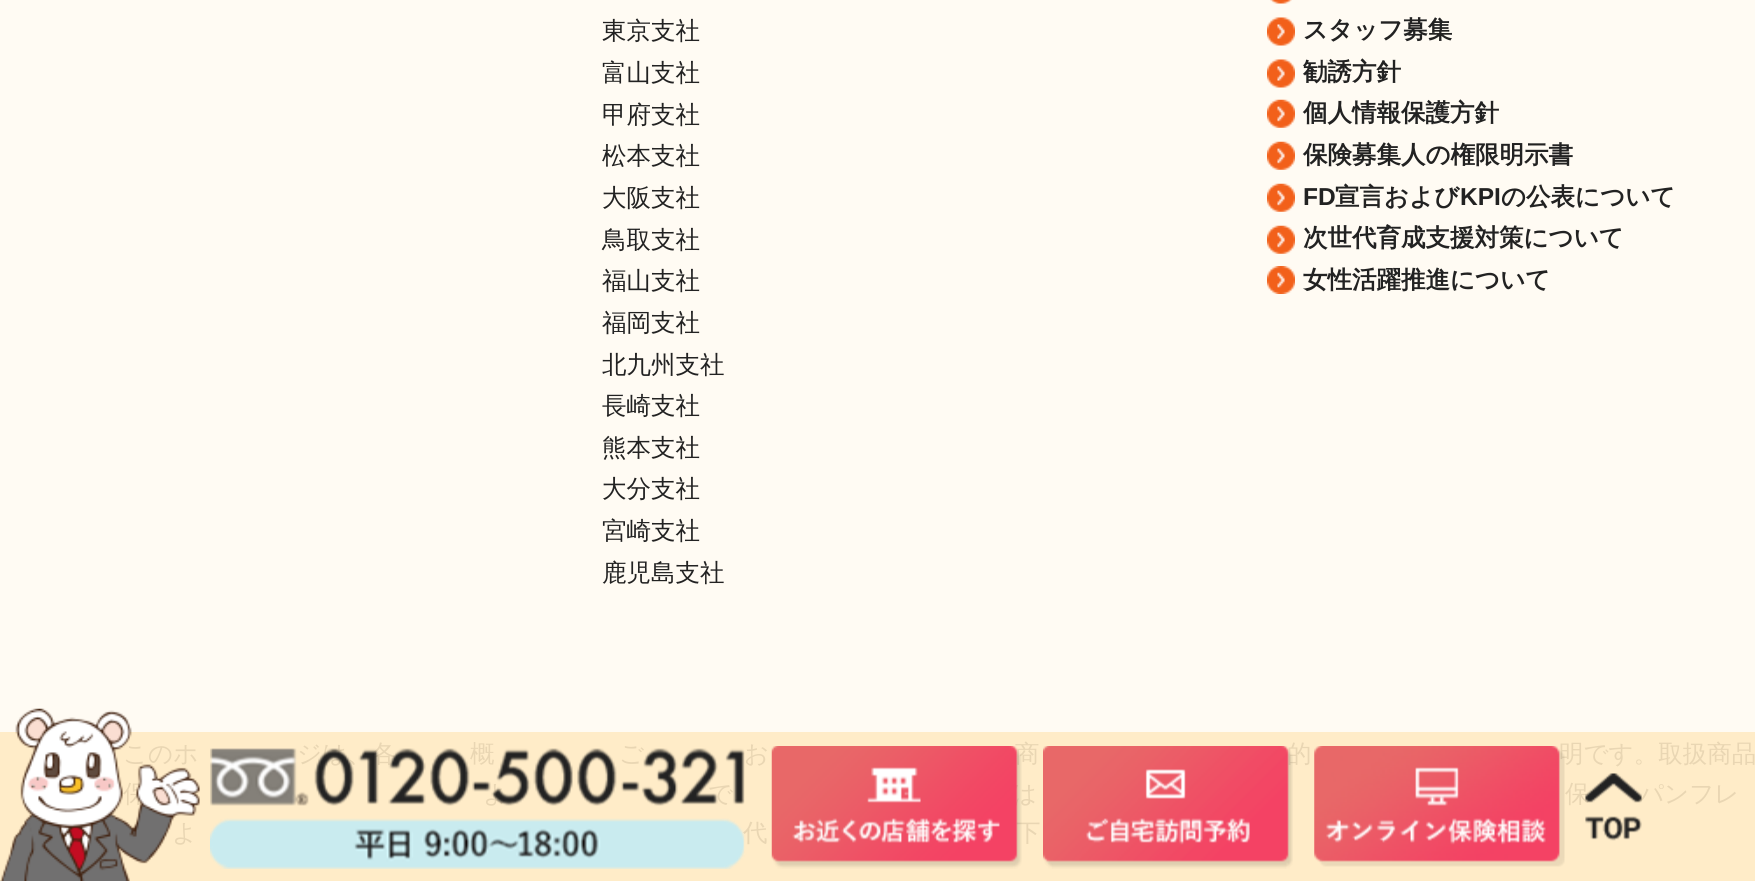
import math
import cairo

surface = cairo.ImageSurface(cairo.FORMAT_RGB24, 1755, 881)
ctx = cairo.Context(surface)
options = cairo.FontOptions()
options.set_hint_metrics(cairo.HINT_METRICS_OFF)
options.set_hint_style(cairo.HINT_STYLE_NONE)
ctx.set_font_options(options)
ctx.set_miter_limit(4)


def picture(path, x, y, w, h):
    ctx.save()
    ctx.set_source_surface(cairo.ImageSurface.create_from_png(path), x, y)
    ctx.rectangle(x, y, w, h)
    ctx.fill()
    ctx.restore()


ctx.set_source_rgb(1, 0.984, 0.953)
ctx.paint()
ctx.set_source_rgb(1, 0.925, 0.784)
ctx.rectangle(0, 732, 1755, 149)
ctx.fill()
ctx.select_font_face("WenQuanYi Zen Hei Medium")
ctx.set_font_size(24.5)
ctx.set_source_rgb(0.133, 0.133, 0.133)
ctx.move_to(602, 39)
ctx.show_text("東京支社")
ctx.move_to(602, 81)
ctx.show_text("富山支社")
ctx.move_to(602, 123)
ctx.show_text("甲府支社")
ctx.move_to(602, 164)
ctx.show_text("松本支社")
ctx.move_to(602, 206)
ctx.show_text("大阪支社")
ctx.move_to(602, 248)
ctx.show_text("鳥取支社")
ctx.move_to(602, 289)
ctx.show_text("福山支社")
ctx.move_to(602, 331)
ctx.show_text("福岡支社")
ctx.move_to(602, 373)
ctx.show_text("北九州支社")
ctx.move_to(602, 414)
ctx.show_text("長崎支社")
ctx.move_to(602, 456)
ctx.show_text("熊本支社")
ctx.move_to(602, 497)
ctx.show_text("大分支社")
ctx.move_to(602, 539)
ctx.show_text("宮崎支社")
ctx.move_to(602, 581)
ctx.show_text("鹿児島支社")
picture("img1.png", 1270, 0, 22, 4)
picture("img2.png", 1267, 17, 28, 29)
ctx.select_font_face("WenQuanYi Zen Hei", cairo.FONT_SLANT_NORMAL, cairo.FONT_WEIGHT_BOLD)
ctx.move_to(1303, 38)
ctx.show_text("スタッフ募集")
picture("img2.png", 1267, 59, 28, 29)
ctx.move_to(1303, 80)
ctx.show_text("勧誘方針")
picture("img3.png", 1267, 99, 28, 29)
ctx.move_to(1303, 121)
ctx.show_text("個人情報保護方針")
picture("img3.png", 1267, 141, 28, 29)
ctx.move_to(1303, 163)
ctx.show_text("保険募集人の権限明示書")
picture("img3.png", 1267, 183, 28, 29)
ctx.select_font_face("Liberation Sans", cairo.FONT_SLANT_NORMAL, cairo.FONT_WEIGHT_BOLD)
ctx.move_to(1303, 205)
ctx.show_text("FD")
ctx.select_font_face("WenQuanYi Zen Hei", cairo.FONT_SLANT_NORMAL, cairo.FONT_WEIGHT_BOLD)
ctx.move_to(1335, 205)
ctx.show_text("宣言および")
ctx.select_font_face("Liberation Sans", cairo.FONT_SLANT_NORMAL, cairo.FONT_WEIGHT_BOLD)
ctx.move_to(1460, 205)
ctx.show_text("KPI")
ctx.select_font_face("WenQuanYi Zen Hei", cairo.FONT_SLANT_NORMAL, cairo.FONT_WEIGHT_BOLD)
ctx.move_to(1501, 205)
ctx.show_text("の公表について")
picture("img3.png", 1267, 225, 28, 29)
ctx.move_to(1303, 246)
ctx.show_text("次世代育成支援対策について")
picture("img4.png", 1267, 266, 28, 28)
ctx.move_to(1303, 288)
ctx.show_text("女性活躍推進について")
ctx.select_font_face("WenQuanYi Zen Hei Medium")
ctx.set_source_rgb(0.914, 0.839, 0.702)
ctx.move_to(123, 762)
ctx.show_text("このホ")
ctx.move_to(123, 802)
ctx.show_text("保")
ctx.move_to(172, 841)
ctx.show_text("よ")
picture("img5.png", 0, 708, 200, 173)
ctx.move_to(297, 762)
ctx.show_text("ジは、各")
ctx.move_to(470, 762)
ctx.show_text("概")
ctx.move_to(619, 762)
ctx.show_text("ご")
ctx.move_to(483, 802)
ctx.show_text("よ")
ctx.move_to(708, 802)
ctx.show_text("で")
ctx.move_to(743, 841)
ctx.show_text("代")
picture("img6.png", 210, 748, 535, 121)
ctx.move_to(1015, 762)
ctx.show_text("商")
ctx.move_to(1012, 802)
ctx.show_text("は")
ctx.move_to(1016, 841)
ctx.show_text("下")
picture("img7.png", 771, 746, 251, 123)
ctx.move_to(1287, 762)
ctx.show_text("的")
picture("img8.png", 1043, 746, 250, 123)
ctx.move_to(1559, 762)
ctx.show_text("明です。取扱商品")
ctx.move_to(1565, 802)
ctx.show_text("保")
picture("img9.png", 1314, 746, 251, 121)
ctx.move_to(1639, 802)
ctx.show_text("パンフレ")
picture("img10.png", 1585, 773, 57, 68)
ctx.move_to(744, 762)
ctx.show_text("お")
surface.write_to_png("page.png")
